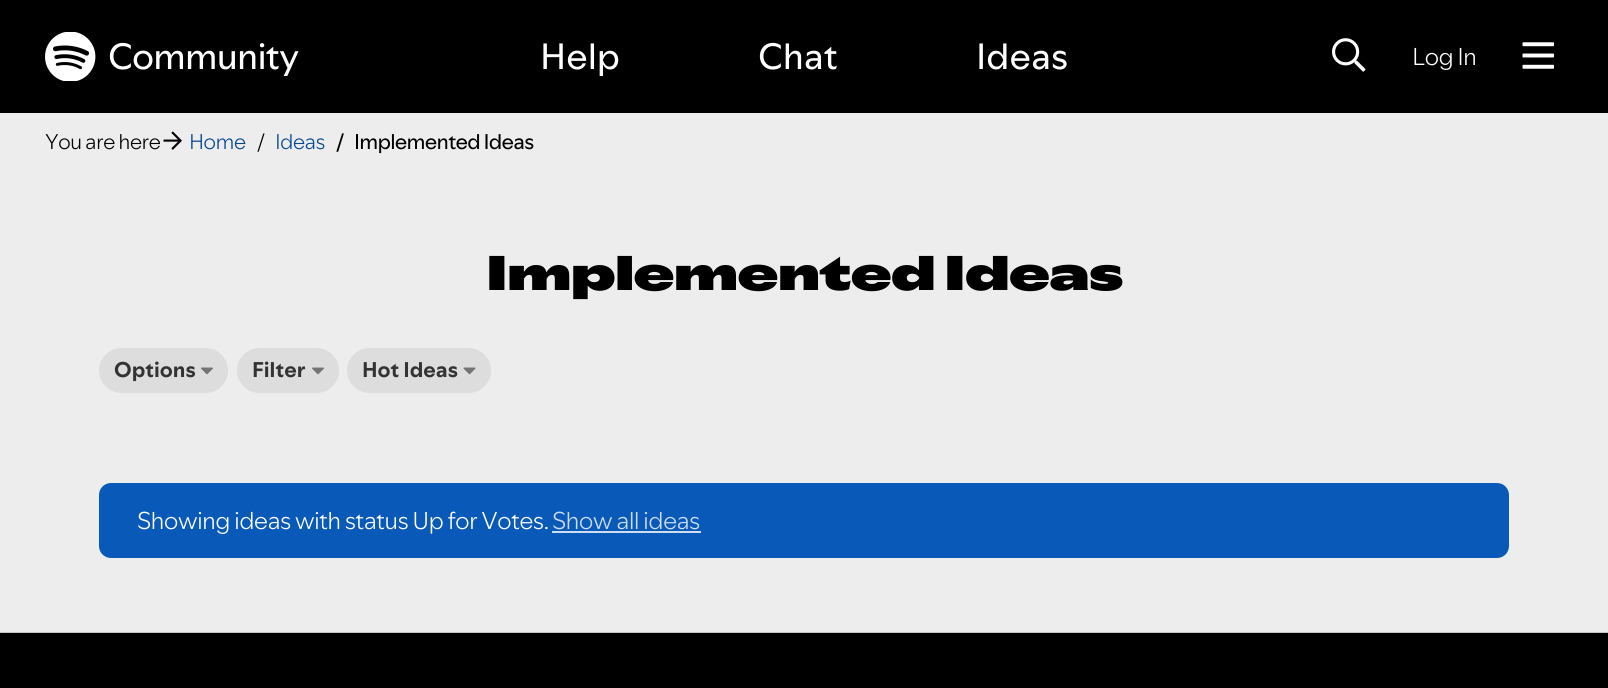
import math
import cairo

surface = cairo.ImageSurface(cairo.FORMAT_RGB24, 1608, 688)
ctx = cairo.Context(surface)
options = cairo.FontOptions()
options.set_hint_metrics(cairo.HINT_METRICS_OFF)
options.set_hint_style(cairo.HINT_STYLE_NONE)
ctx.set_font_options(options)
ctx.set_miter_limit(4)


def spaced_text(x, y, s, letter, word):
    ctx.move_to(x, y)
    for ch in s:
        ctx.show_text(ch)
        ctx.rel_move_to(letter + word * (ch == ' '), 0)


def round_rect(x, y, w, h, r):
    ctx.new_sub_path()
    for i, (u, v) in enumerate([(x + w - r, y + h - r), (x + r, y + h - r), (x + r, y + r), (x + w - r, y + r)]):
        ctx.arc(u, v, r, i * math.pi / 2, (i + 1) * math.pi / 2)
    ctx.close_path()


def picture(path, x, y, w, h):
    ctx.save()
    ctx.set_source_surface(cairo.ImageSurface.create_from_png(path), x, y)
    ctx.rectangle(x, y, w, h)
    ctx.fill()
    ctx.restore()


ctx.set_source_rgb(0.929, 0.929, 0.929)
ctx.paint()
ctx.set_source_rgb(0, 0, 0)
ctx.rectangle(0, 0, 1608, 113)
ctx.fill()
picture("img1.png", 45, 32, 51, 49)
ctx.select_font_face("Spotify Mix")
ctx.set_font_size(36)
ctx.set_source_rgb(1, 1, 1)
spaced_text(108, 69, "Community", -0.75, 0)
ctx.move_to(540, 69)
ctx.show_text("Help")
ctx.move_to(758, 69)
ctx.show_text("Chat")
ctx.move_to(976, 69)
ctx.show_text("Ideas")
picture("img2.png", 1332, 38, 34, 34)
ctx.select_font_face("Spotify Mix Light")
ctx.set_font_size(24)
spaced_text(1412, 65, "Log In", -0.75, 0)
picture("img3.png", 1522, 42, 32, 27)
ctx.set_font_size(21)
ctx.set_source_rgb(0, 0, 0)
spaced_text(45, 149, "You are here", -0.75, 0)
picture("img4.png", 163, 131, 19, 19)
ctx.set_source_rgb(0.031, 0.278, 0.569)
spaced_text(189, 149, "Home", -0.75, 0)
ctx.set_source_rgb(0, 0, 0)
spaced_text(257, 149, "/", -0.75, 0)
ctx.set_source_rgb(0.031, 0.278, 0.569)
spaced_text(275, 149, "Ideas", -0.75, 0)
ctx.select_font_face("Spotify Mix")
ctx.set_source_rgb(0, 0, 0)
spaced_text(336, 149, "/", -0.75, 0)
spaced_text(354, 149, "Implemented Ideas", -0.75, 0)
ctx.select_font_face("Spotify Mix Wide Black")
ctx.set_font_size(48)
spaced_text(486, 290, "Implemented Ideas", -0.75, 0)
ctx.set_source_rgb(0.867, 0.867, 0.867)
round_rect(99, 348, 129, 45, 22.5)
ctx.fill()
ctx.select_font_face("Spotify Mix", cairo.FONT_SLANT_NORMAL, cairo.FONT_WEIGHT_BOLD)
ctx.set_font_size(21)
ctx.set_source_rgb(0.2, 0.2, 0.2)
ctx.move_to(114, 377)
ctx.show_text("Options")
picture("img5.png", 201, 367, 12, 8)
ctx.set_source_rgb(0.867, 0.867, 0.867)
round_rect(237, 348, 102, 45, 22.5)
ctx.fill()
ctx.set_source_rgb(0.2, 0.2, 0.2)
ctx.move_to(252, 377)
ctx.show_text("Filter")
picture("img5.png", 312, 367, 12, 8)
ctx.set_source_rgb(0.867, 0.867, 0.867)
round_rect(347, 348, 144, 45, 22.5)
ctx.fill()
ctx.set_source_rgb(0.2, 0.2, 0.2)
ctx.move_to(362, 377)
ctx.show_text("Hot Ideas")
picture("img6.png", 463, 367, 13, 8)
ctx.set_source_rgb(0.039, 0.349, 0.722)
round_rect(99, 483, 1410, 75, 12)
ctx.fill()
ctx.select_font_face("Spotify Mix Light")
ctx.set_font_size(24)
ctx.set_source_rgb(1, 1, 1)
spaced_text(137, 529, "Showing ideas with status Up for Votes.", -0.75, 0)
ctx.set_source_rgb(0.808, 0.871, 0.945)
spaced_text(552, 529, "Show all ideas", -0.75, 0)
ctx.rectangle(552, 531, 149, 2)
ctx.fill()
ctx.set_source_rgb(0.769, 0.769, 0.769)
ctx.rectangle(0, 632, 1608, 1)
ctx.fill()
ctx.set_source_rgb(0, 0, 0)
ctx.rectangle(0, 633, 1608, 55)
ctx.fill()
surface.write_to_png("page.png")
